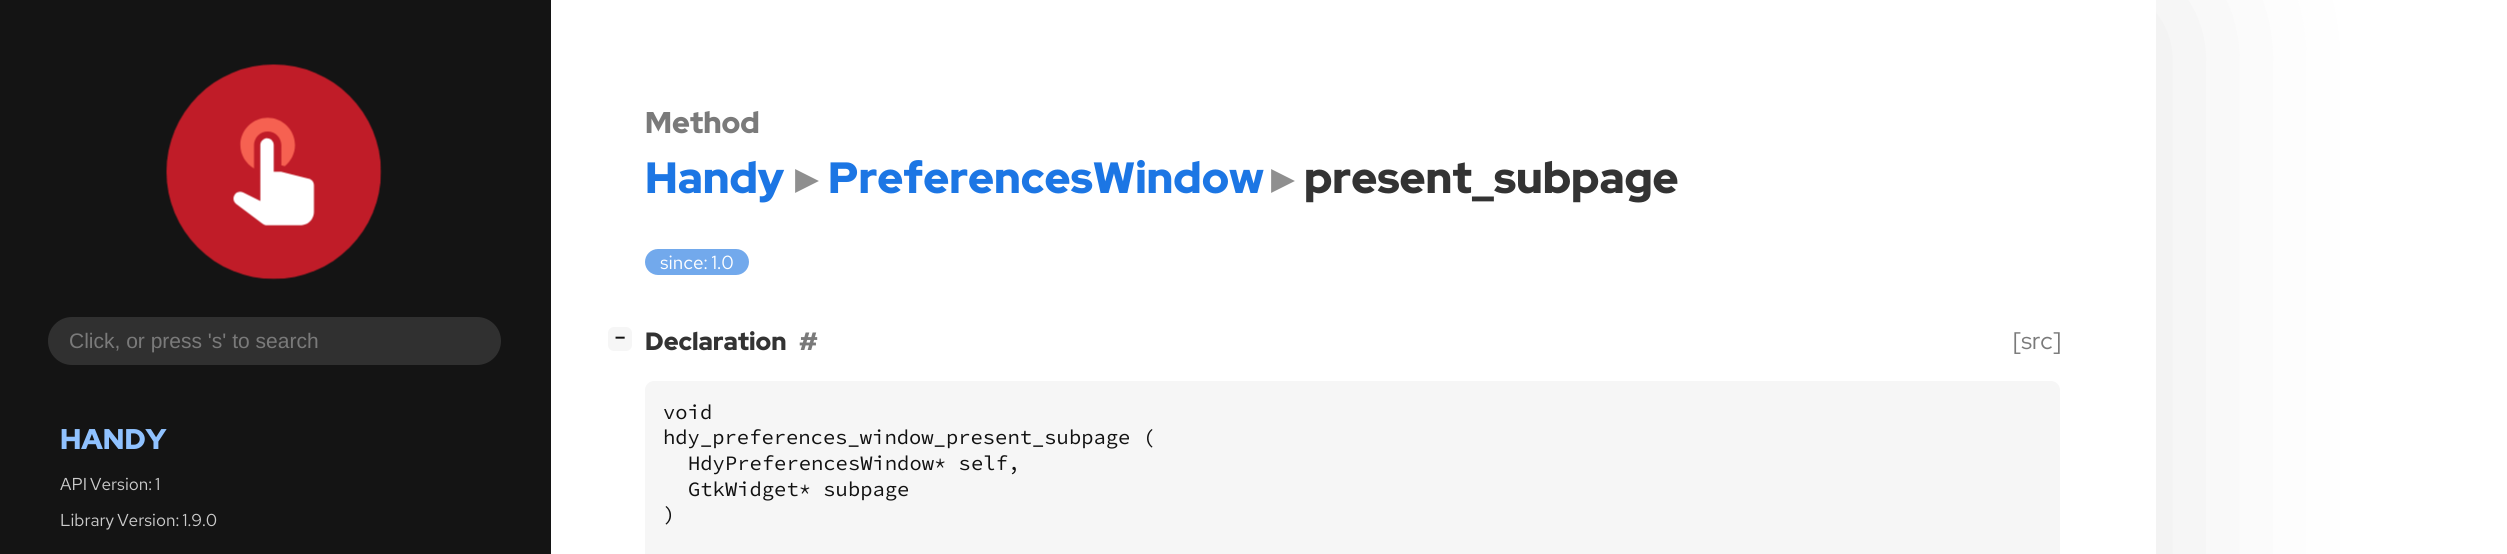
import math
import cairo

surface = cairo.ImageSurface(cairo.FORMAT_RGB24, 2507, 554)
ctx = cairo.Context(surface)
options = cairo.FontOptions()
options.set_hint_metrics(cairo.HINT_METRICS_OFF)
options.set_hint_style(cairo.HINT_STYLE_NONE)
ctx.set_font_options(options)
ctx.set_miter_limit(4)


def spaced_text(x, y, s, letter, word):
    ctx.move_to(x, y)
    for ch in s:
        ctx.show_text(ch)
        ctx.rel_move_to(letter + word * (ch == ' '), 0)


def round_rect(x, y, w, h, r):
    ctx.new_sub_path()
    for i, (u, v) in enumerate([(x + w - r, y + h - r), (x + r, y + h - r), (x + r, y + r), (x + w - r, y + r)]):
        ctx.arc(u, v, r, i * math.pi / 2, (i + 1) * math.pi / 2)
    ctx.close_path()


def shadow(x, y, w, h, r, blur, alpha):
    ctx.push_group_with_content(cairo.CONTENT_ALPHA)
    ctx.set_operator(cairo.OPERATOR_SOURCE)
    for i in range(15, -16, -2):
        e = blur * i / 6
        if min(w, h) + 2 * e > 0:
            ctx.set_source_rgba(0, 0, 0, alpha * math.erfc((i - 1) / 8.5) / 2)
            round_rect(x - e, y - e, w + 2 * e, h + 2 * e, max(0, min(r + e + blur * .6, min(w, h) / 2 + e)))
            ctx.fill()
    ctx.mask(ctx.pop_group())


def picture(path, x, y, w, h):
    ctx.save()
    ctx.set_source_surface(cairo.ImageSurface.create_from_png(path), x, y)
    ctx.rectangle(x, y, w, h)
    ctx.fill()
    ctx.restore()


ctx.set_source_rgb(1, 1, 1)
ctx.paint()
ctx.save()
ctx.set_fill_rule(cairo.FILL_RULE_EVEN_ODD)
ctx.new_path()
ctx.move_to(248, 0)
ctx.line_to(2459, 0)
ctx.line_to(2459, 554)
ctx.line_to(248, 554)
ctx.close_path()
ctx.move_to(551, 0)
ctx.line_to(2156, 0)
ctx.line_to(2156, 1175)
ctx.line_to(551, 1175)
ctx.close_path()
ctx.clip()
ctx.set_source_rgb(0, 0, 0)
shadow(551, 0, 1605, 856, 0, 100.5, 0.1)
ctx.restore()
ctx.set_source_rgb(0.082, 0.082, 0.082)
ctx.rectangle(0, 0, 551, 554)
ctx.fill()
picture("img1.png", 166, 64, 216, 216)
ctx.set_source_rgb(0.188, 0.188, 0.188)
round_rect(48, 317, 453, 48, 24)
ctx.fill()
ctx.select_font_face("Liberation Sans")
ctx.set_font_size(21)
ctx.set_source_rgb(0.478, 0.478, 0.478)
ctx.move_to(69, 348)
ctx.show_text("Click, or press 's' to search")
ctx.select_font_face("Red Hat Display Black")
ctx.set_font_size(28.5)
ctx.set_source_rgb(0.565, 0.761, 1)
ctx.move_to(60, 449)
ctx.show_text("HANDY")
ctx.select_font_face("Red Hat Text")
ctx.set_font_size(17.25)
ctx.set_source_rgb(0.8, 0.8, 0.8)
spaced_text(60, 490, "API Version: 1", 0, -1)
spaced_text(60, 526, "Library Version: 1.9.0", 0, -1)
ctx.select_font_face("Red Hat Display Black")
ctx.set_font_size(30)
ctx.set_source_rgb(0.478, 0.478, 0.478)
ctx.move_to(645, 133)
ctx.show_text("Method")
ctx.set_font_size(43.75)
ctx.set_source_rgb(0.11, 0.463, 0.894)
ctx.move_to(645, 193)
ctx.show_text("Handy")
ctx.select_font_face("DejaVu Sans", cairo.FONT_SLANT_NORMAL, cairo.FONT_WEIGHT_BOLD)
ctx.set_source_rgb(0.561, 0.561, 0.561)
ctx.move_to(795, 193)
ctx.show_text("▸")
ctx.select_font_face("Red Hat Display Black")
ctx.set_source_rgb(0.11, 0.463, 0.894)
ctx.move_to(828, 193)
ctx.show_text("PreferencesWindow")
ctx.select_font_face("DejaVu Sans", cairo.FONT_SLANT_NORMAL, cairo.FONT_WEIGHT_BOLD)
ctx.set_source_rgb(0.561, 0.561, 0.561)
ctx.move_to(1271, 193)
ctx.show_text("▸")
ctx.select_font_face("Red Hat Display Black")
ctx.set_source_rgb(0.2, 0.2, 0.2)
ctx.move_to(1304, 193)
ctx.show_text("present_subpage")
ctx.set_source_rgb(0.447, 0.663, 0.925)
round_rect(645, 249, 104, 26, 13)
ctx.fill()
ctx.select_font_face("Red Hat Text")
ctx.set_font_size(19)
ctx.set_source_rgb(1, 1, 1)
spaced_text(660, 269, "since: 1.0", 0, -1)
ctx.set_source_rgb(0.961, 0.961, 0.961)
round_rect(608, 327, 24, 24, 6)
ctx.fill()
ctx.select_font_face("DejaVu Sans Mono", cairo.FONT_SLANT_NORMAL, cairo.FONT_WEIGHT_BOLD)
ctx.set_font_size(17)
ctx.set_source_rgb(0.067, 0.067, 0.067)
ctx.move_to(615, 343)
ctx.show_text("−")
ctx.select_font_face("Red Hat Display Black")
ctx.set_font_size(25)
ctx.set_source_rgb(0.2, 0.2, 0.2)
ctx.move_to(645, 350)
ctx.show_text("Declaration")
ctx.set_source_rgb(0.478, 0.478, 0.478)
ctx.move_to(799, 350)
ctx.show_text("#")
ctx.select_font_face("Red Hat Display")
ctx.set_font_size(24)
ctx.move_to(2013, 349)
ctx.show_text("[src]")
ctx.set_source_rgb(0.961, 0.961, 0.961)
round_rect(645, 381, 1415, 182, 9)
ctx.fill()
ctx.select_font_face("Source Code Pro")
ctx.set_font_size(20.5)
ctx.set_source_rgb(0.067, 0.067, 0.067)
ctx.move_to(663, 419)
ctx.show_text("void")
ctx.move_to(663, 444)
ctx.show_text("hdy_preferences_window_present_subpage (")
ctx.move_to(688, 470)
ctx.show_text("HdyPreferencesWindow* self,")
ctx.move_to(688, 496)
ctx.show_text("GtkWidget* subpage")
ctx.move_to(663, 521)
ctx.show_text(")")
surface.write_to_png("page.png")
